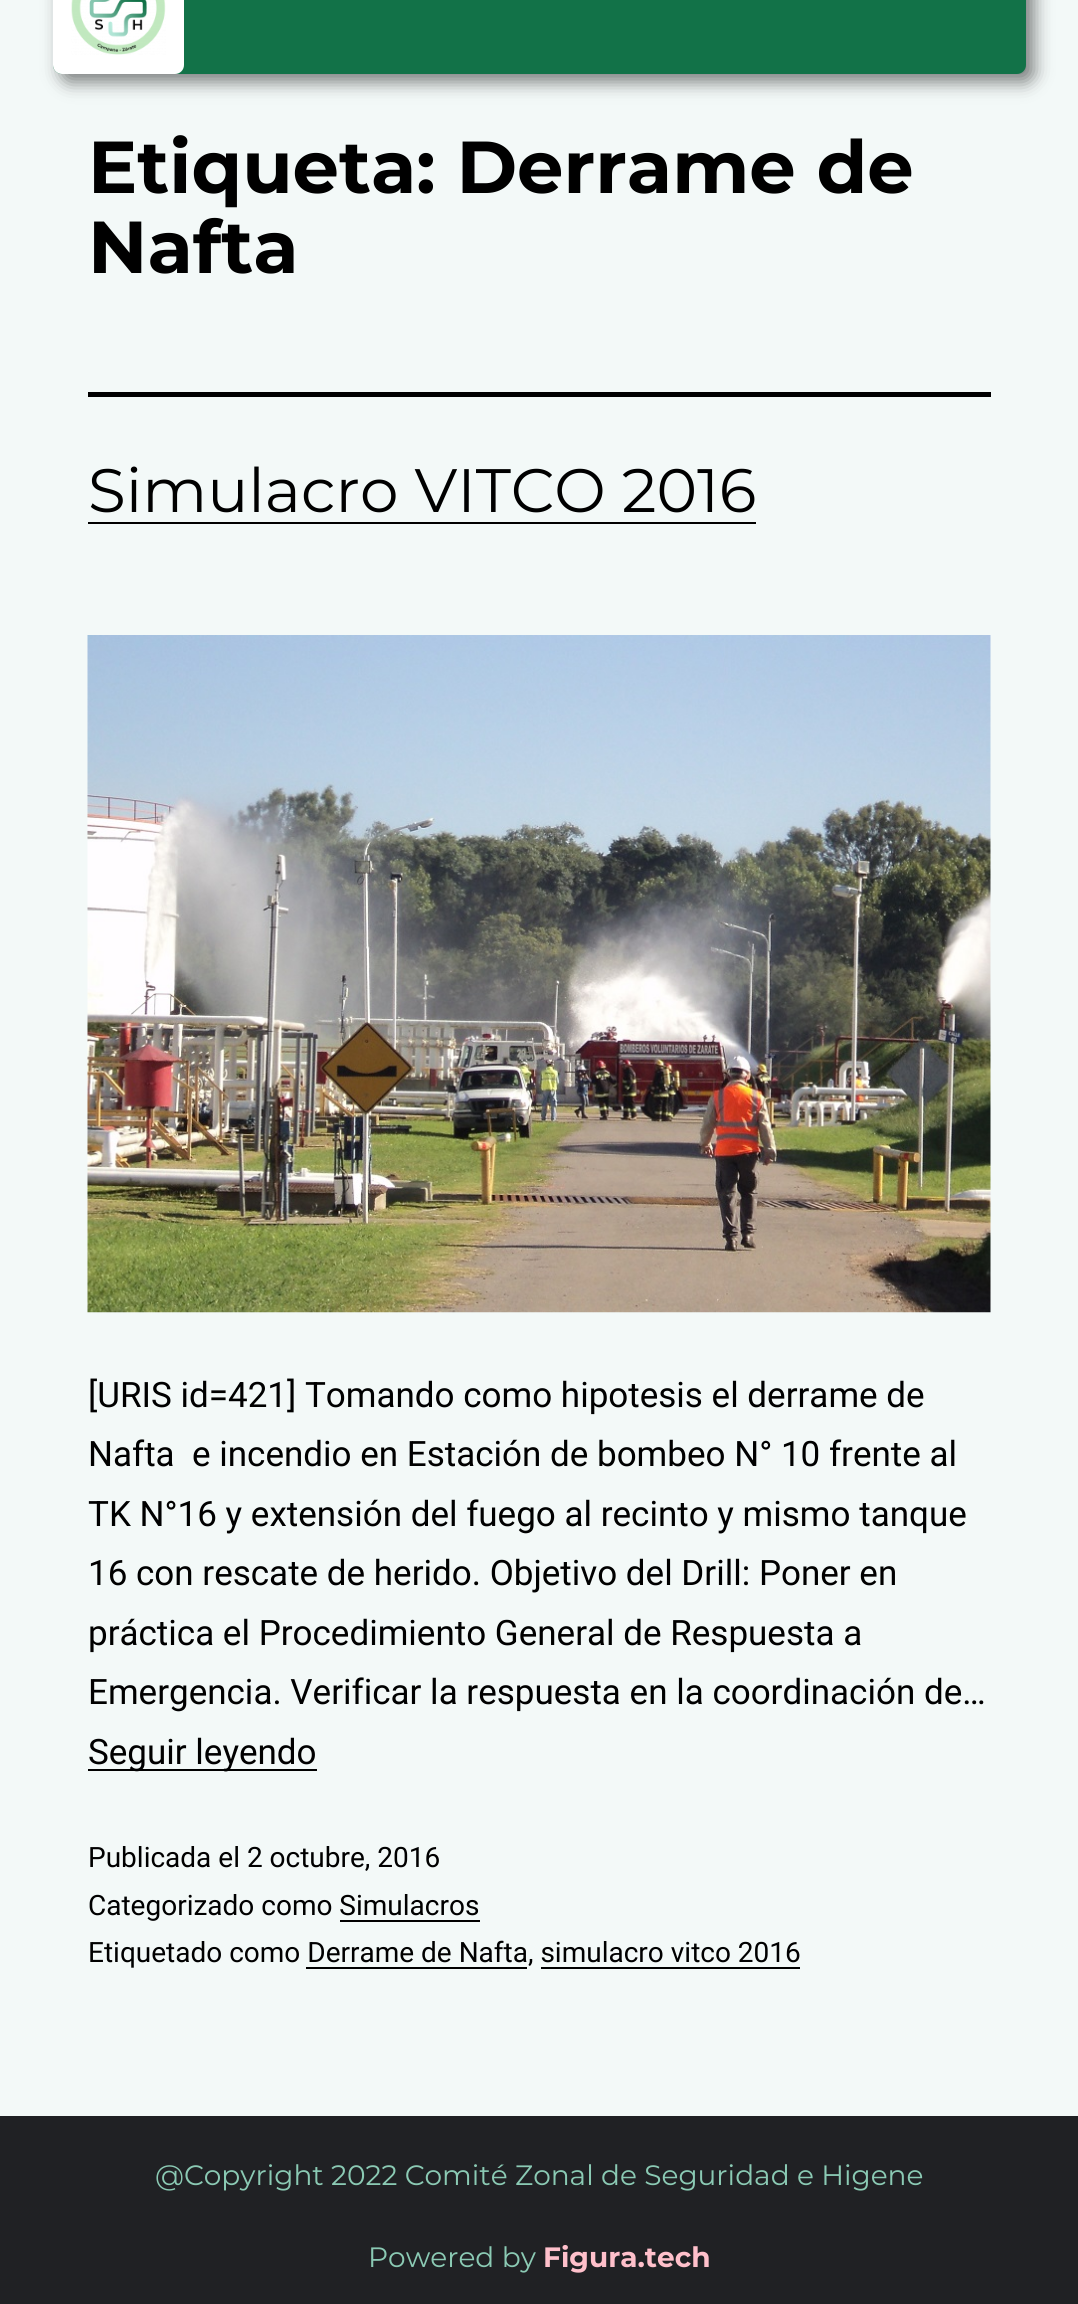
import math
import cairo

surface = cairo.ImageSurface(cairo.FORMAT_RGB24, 1078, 2304)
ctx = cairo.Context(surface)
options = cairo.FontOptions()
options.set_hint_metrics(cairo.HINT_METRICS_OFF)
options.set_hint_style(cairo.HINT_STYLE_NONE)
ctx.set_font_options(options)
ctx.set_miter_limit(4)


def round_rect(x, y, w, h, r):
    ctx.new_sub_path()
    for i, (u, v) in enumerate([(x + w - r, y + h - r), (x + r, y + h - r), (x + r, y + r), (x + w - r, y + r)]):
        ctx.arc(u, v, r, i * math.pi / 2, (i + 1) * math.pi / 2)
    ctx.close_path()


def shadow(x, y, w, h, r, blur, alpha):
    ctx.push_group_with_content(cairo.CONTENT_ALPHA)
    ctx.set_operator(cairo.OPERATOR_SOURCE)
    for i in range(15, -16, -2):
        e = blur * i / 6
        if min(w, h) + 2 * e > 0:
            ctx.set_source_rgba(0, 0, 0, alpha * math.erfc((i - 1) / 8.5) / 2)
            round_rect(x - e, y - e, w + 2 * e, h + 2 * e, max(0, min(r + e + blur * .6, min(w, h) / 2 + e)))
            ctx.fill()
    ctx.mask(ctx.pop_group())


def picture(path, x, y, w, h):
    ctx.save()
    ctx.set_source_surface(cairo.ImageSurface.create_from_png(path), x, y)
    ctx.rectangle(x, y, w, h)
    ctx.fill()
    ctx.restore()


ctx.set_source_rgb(0.953, 0.976, 0.969)
ctx.paint()
ctx.set_source_rgb(0, 0, 0)
shadow(61, -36, 973, 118, 9, 9, 0.5)
ctx.set_source_rgb(0.071, 0.447, 0.282)
round_rect(53, -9, 973, 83, 9)
ctx.fill()
ctx.set_source_rgb(1, 1, 1)
round_rect(53, -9, 131, 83, 9)
ctx.fill()
picture("img1.png", 71, 0, 95, 55)
ctx.set_source_rgb(0, 0, 0)
ctx.rectangle(88, 392, 903, 5)
ctx.fill()
ctx.select_font_face("Montserrat", cairo.FONT_SLANT_NORMAL, cairo.FONT_WEIGHT_BOLD)
ctx.set_font_size(73.5)
ctx.move_to(88, 193)
ctx.show_text("Etiqueta: Derrame de")
ctx.move_to(88, 273)
ctx.show_text("Nafta")
ctx.select_font_face("Montserrat")
ctx.set_font_size(61.25)
ctx.move_to(88, 512)
ctx.show_text("Simulacro VITCO 2016")
ctx.rectangle(88, 522, 668, 2)
ctx.fill()
picture("img2.png", 87, 635, 904, 678)
ctx.select_font_face("Roboto")
ctx.set_font_size(35)
ctx.move_to(88, 1407)
ctx.show_text("[URIS id=421] Tomando como hipotesis el derrame de")
ctx.move_to(88, 1466)
ctx.show_text("Nafta  e incendio en Estación de bombeo N° 10 frente al")
ctx.move_to(88, 1526)
ctx.show_text("TK N°16 y extensión del fuego al recinto y mismo tanque")
ctx.move_to(88, 1585)
ctx.show_text("16 con rescate de herido. Objetivo del Drill: Poner en")
ctx.move_to(88, 1645)
ctx.show_text("práctica el Procedimiento General de Respuesta a")
ctx.move_to(88, 1704)
ctx.show_text("Emergencia. Verificar la respuesta en la coordinación de…")
ctx.rectangle(88, 1769, 229, 2)
ctx.fill()
ctx.move_to(88, 1764)
ctx.show_text("Seguir leyendo")
ctx.set_font_size(28)
ctx.move_to(88, 1867)
ctx.show_text("Publicada el 2 octubre, 2016")
ctx.move_to(88, 1915)
ctx.show_text("Categorizado como Simulacros")
ctx.rectangle(340, 1920, 140, 2)
ctx.fill()
ctx.move_to(88, 1962)
ctx.show_text("Etiquetado como Derrame de Nafta, simulacro vitco 2016")
ctx.rectangle(306, 1967, 221, 2)
ctx.fill()
ctx.rectangle(541, 1967, 259, 2)
ctx.fill()
ctx.set_source_rgb(0.125, 0.129, 0.141)
ctx.rectangle(0, 2116, 1078, 188)
ctx.fill()
ctx.select_font_face("Montserrat")
ctx.set_source_rgb(0.545, 0.792, 0.706)
ctx.move_to(155, 2185)
ctx.show_text("@Copyright 2022 Comité Zonal de Seguridad e Higene")
ctx.move_to(368, 2267)
ctx.show_text("Powered by")
ctx.select_font_face("Montserrat", cairo.FONT_SLANT_NORMAL, cairo.FONT_WEIGHT_BOLD)
ctx.set_source_rgb(1, 0.753, 0.796)
ctx.move_to(543, 2267)
ctx.show_text("Figura.tech")
surface.write_to_png("page.png")
